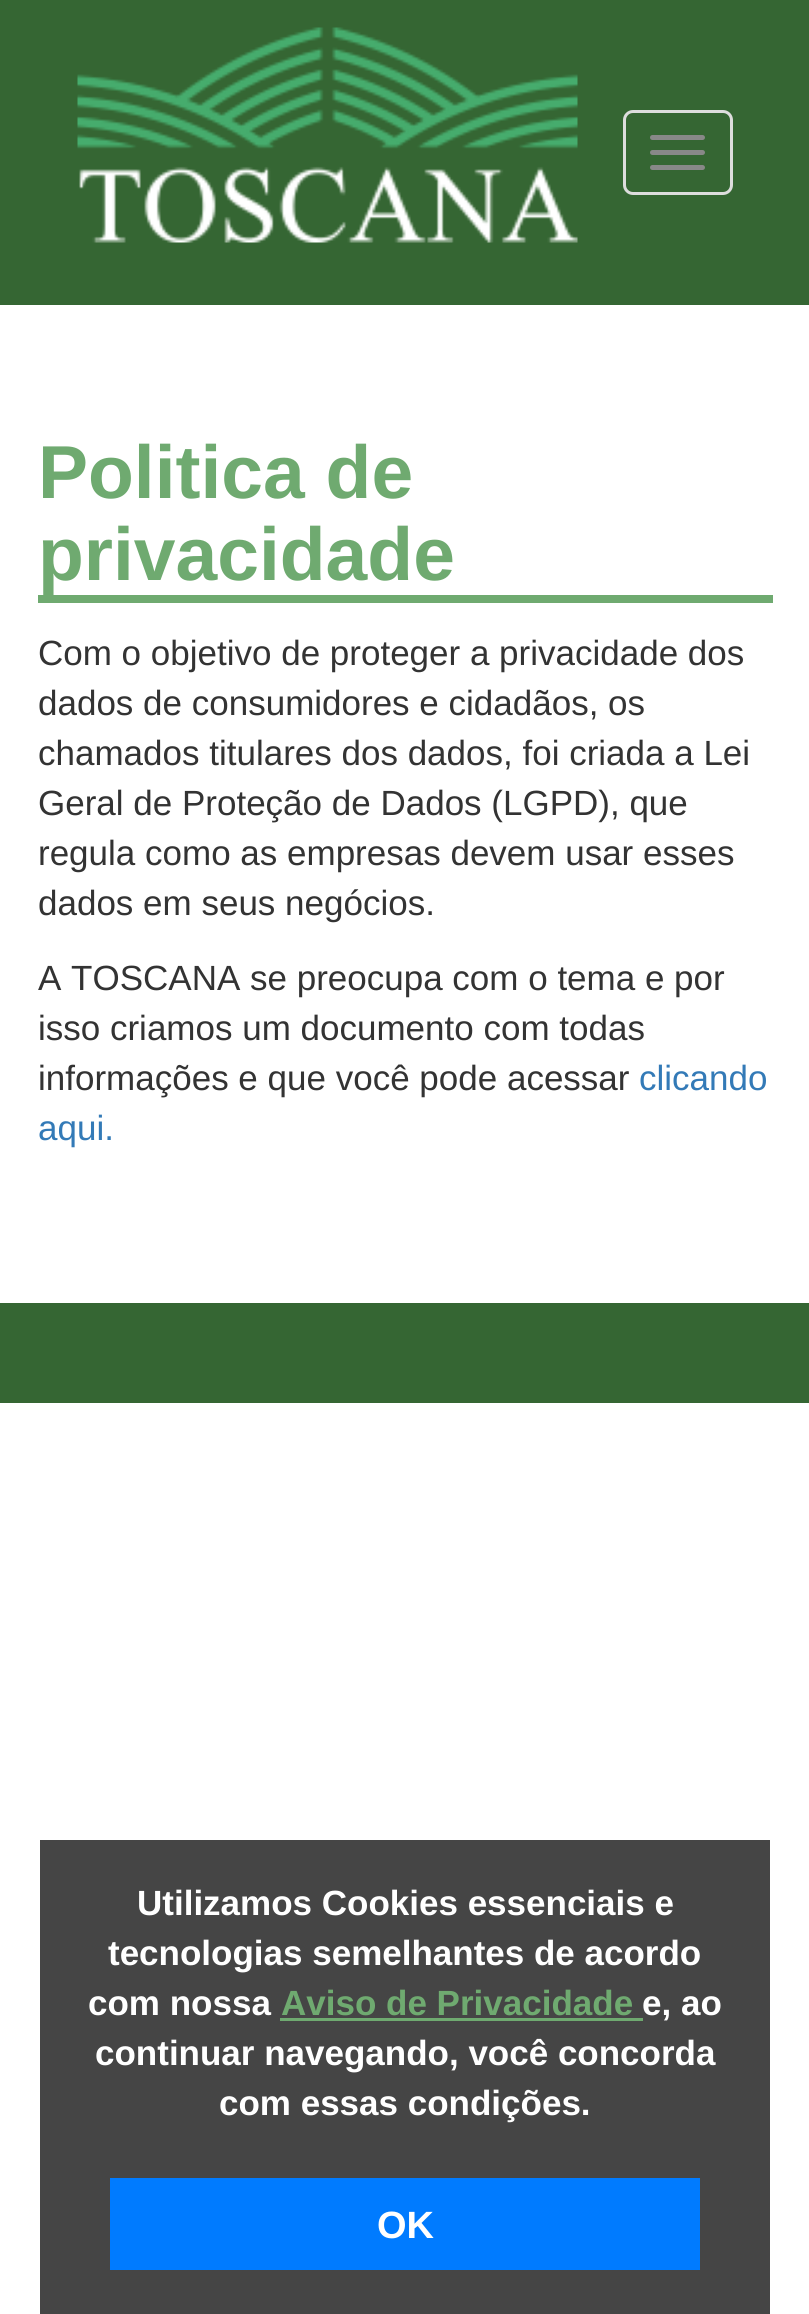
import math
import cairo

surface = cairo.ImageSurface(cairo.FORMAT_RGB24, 809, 2314)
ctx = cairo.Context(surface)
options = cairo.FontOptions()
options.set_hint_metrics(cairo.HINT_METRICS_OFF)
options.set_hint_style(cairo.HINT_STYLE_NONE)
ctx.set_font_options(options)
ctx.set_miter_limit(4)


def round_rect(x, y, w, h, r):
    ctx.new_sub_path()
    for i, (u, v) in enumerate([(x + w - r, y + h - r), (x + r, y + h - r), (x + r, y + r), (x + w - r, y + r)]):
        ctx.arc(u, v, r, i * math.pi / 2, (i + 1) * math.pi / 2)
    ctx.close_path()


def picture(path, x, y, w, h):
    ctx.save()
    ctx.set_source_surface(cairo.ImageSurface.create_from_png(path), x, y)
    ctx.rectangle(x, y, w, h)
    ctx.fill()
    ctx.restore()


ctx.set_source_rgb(1, 1, 1)
ctx.paint()
ctx.set_source_rgb(0.208, 0.4, 0.2)
ctx.rectangle(0, 0, 809, 305)
ctx.fill()
picture("img1.png", 77, 27, 501, 216)
round_rect(624.5, 111.5, 107, 82, 8.5)
ctx.set_source_rgb(0.867, 0.867, 0.867)
ctx.set_line_width(3)
ctx.stroke()
ctx.set_source_rgb(0.533, 0.533, 0.533)
round_rect(650, 135, 55, 5, 2.5)
ctx.fill()
round_rect(650, 150, 55, 5, 2.5)
ctx.fill()
round_rect(650, 165, 55, 5, 2.5)
ctx.fill()
ctx.set_source_rgb(0.435, 0.667, 0.439)
ctx.rectangle(38, 595, 735, 8)
ctx.fill()
ctx.select_font_face("Liberation Sans", cairo.FONT_SLANT_NORMAL, cairo.FONT_WEIGHT_BOLD)
ctx.set_font_size(75)
ctx.move_to(38, 498)
ctx.show_text("Politica de")
ctx.move_to(38, 580)
ctx.show_text("privacidade")
ctx.select_font_face("Liberation Sans")
ctx.set_font_size(35)
ctx.set_source_rgb(0.2, 0.2, 0.2)
ctx.move_to(38, 665)
ctx.show_text("Com o objetivo de proteger a privacidade dos")
ctx.move_to(38, 715)
ctx.show_text("dados de consumidores e cidadãos, os")
ctx.move_to(38, 765)
ctx.show_text("chamados titulares dos dados, foi criada a Lei")
ctx.move_to(38, 815)
ctx.show_text("Geral de Proteção de Dados (LGPD), que")
ctx.move_to(38, 865)
ctx.show_text("regula como as empresas devem usar esses")
ctx.move_to(38, 915)
ctx.show_text("dados em seus negócios.")
ctx.move_to(38, 990)
ctx.show_text("A TOSCANA se preocupa com o tema e por")
ctx.move_to(38, 1040)
ctx.show_text("isso criamos um documento com todas")
ctx.move_to(38, 1090)
ctx.show_text("informações e que você pode acessar")
ctx.set_source_rgb(0.2, 0.478, 0.718)
ctx.move_to(639, 1090)
ctx.show_text("clicando")
ctx.move_to(38, 1140)
ctx.show_text("aqui.")
ctx.set_source_rgb(0.271, 0.271, 0.271)
ctx.rectangle(40, 1840, 730, 474)
ctx.fill()
ctx.select_font_face("Liberation Sans", cairo.FONT_SLANT_NORMAL, cairo.FONT_WEIGHT_BOLD)
ctx.set_source_rgb(1, 1, 1)
ctx.move_to(137, 1915)
ctx.show_text("Utilizamos Cookies essenciais e")
ctx.move_to(108, 1965)
ctx.show_text("tecnologias semelhantes de acordo")
ctx.move_to(88, 2015)
ctx.show_text("com nossa")
ctx.set_source_rgb(0.435, 0.667, 0.439)
ctx.move_to(281, 2015)
ctx.show_text("Aviso de Privacidade")
ctx.rectangle(280, 2018, 363, 3)
ctx.fill()
ctx.set_source_rgb(1, 1, 1)
ctx.move_to(642, 2015)
ctx.show_text("e, ao")
ctx.move_to(95, 2065)
ctx.show_text("continuar navegando, você concorda")
ctx.move_to(219, 2115)
ctx.show_text("com essas condições.")
ctx.set_source_rgb(0, 0.482, 1)
ctx.rectangle(110, 2178, 590, 92)
ctx.fill()
ctx.set_font_size(38)
ctx.set_source_rgb(1, 1, 1)
ctx.move_to(377, 2238)
ctx.show_text("OK")
ctx.set_source_rgb(0.208, 0.4, 0.2)
ctx.rectangle(0, 1303, 809, 100)
ctx.fill()
surface.write_to_png("page.png")
